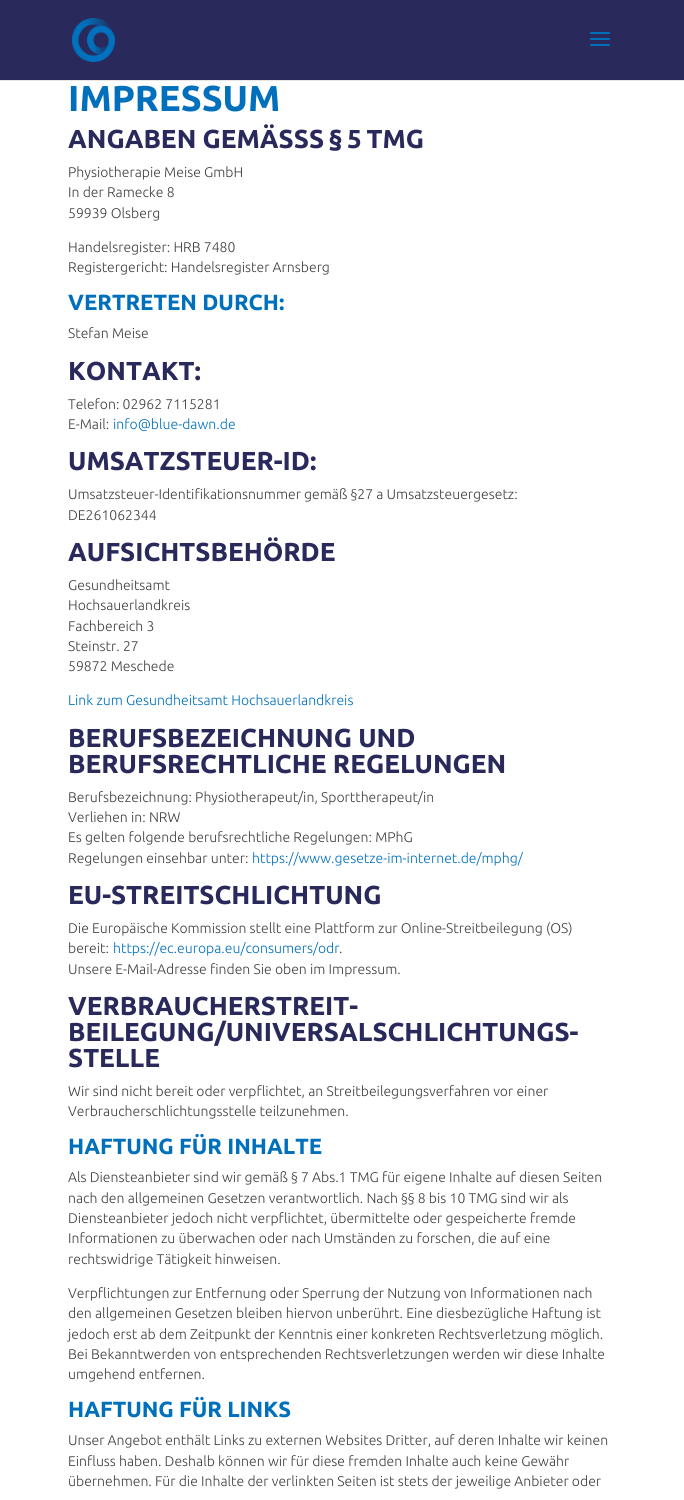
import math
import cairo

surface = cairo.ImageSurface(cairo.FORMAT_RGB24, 684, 1500)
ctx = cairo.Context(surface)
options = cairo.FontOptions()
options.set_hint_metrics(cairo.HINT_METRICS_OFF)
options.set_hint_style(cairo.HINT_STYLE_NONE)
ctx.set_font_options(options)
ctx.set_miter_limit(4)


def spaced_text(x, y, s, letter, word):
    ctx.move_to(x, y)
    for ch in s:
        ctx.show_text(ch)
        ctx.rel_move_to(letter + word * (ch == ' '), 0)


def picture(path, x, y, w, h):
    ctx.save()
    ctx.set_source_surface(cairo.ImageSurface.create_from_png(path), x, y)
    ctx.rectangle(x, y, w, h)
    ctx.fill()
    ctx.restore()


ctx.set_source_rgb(0.161, 0.161, 0.361)
ctx.paint()
ctx.set_source_rgb(0.902, 0.902, 0.902)
ctx.rectangle(0, 80, 684, 1)
ctx.fill()
picture("img1.png", 72, 18, 43, 44)
picture("img2.png", 590, 32, 20, 14)
ctx.set_source_rgb(1, 1, 1)
ctx.rectangle(0, 81, 684, 1419)
ctx.fill()
ctx.select_font_face("Ubuntu", cairo.FONT_SLANT_NORMAL, cairo.FONT_WEIGHT_BOLD)
ctx.set_font_size(36)
ctx.set_source_rgb(0, 0.439, 0.741)
ctx.move_to(68, 111)
ctx.show_text("IMPRESSUM")
ctx.set_font_size(26)
ctx.set_source_rgb(0.161, 0.161, 0.361)
ctx.move_to(68, 148)
ctx.show_text("ANGABEN GEMÄSS")
spaced_text(309, 148, "S § 5 TMG", 0, -1.5)
ctx.select_font_face("Ubuntu Light")
ctx.set_font_size(14)
ctx.set_source_rgb(0.251, 0.251, 0.259)
ctx.move_to(68, 177)
ctx.show_text("Physiotherapie Meise GmbH")
ctx.move_to(68, 197)
ctx.show_text("In der Ramecke 8")
ctx.move_to(68, 218)
ctx.show_text("59939 Olsberg")
ctx.move_to(68, 252)
ctx.show_text("Handelsregister: HRB 7480")
ctx.move_to(68, 272)
ctx.show_text("Registergericht: Handelsregister Arnsberg")
ctx.select_font_face("Ubuntu", cairo.FONT_SLANT_NORMAL, cairo.FONT_WEIGHT_BOLD)
ctx.set_font_size(22)
ctx.set_source_rgb(0, 0.439, 0.741)
ctx.move_to(68, 310)
ctx.show_text("VERTRETEN DURCH:")
ctx.select_font_face("Ubuntu Light")
ctx.set_font_size(14)
ctx.set_source_rgb(0.251, 0.251, 0.259)
ctx.move_to(68, 338)
ctx.show_text("Stefan Meise")
ctx.select_font_face("Ubuntu", cairo.FONT_SLANT_NORMAL, cairo.FONT_WEIGHT_BOLD)
ctx.set_font_size(26)
ctx.set_source_rgb(0.161, 0.161, 0.361)
ctx.move_to(68, 380)
ctx.show_text("KONTAKT:")
ctx.select_font_face("Ubuntu Light")
ctx.set_font_size(14)
ctx.set_source_rgb(0.251, 0.251, 0.259)
ctx.move_to(68, 409)
ctx.show_text("Telefon: 02962 7115281")
ctx.move_to(68, 429)
ctx.show_text("E-Mail:")
ctx.set_source_rgb(0, 0.439, 0.741)
ctx.move_to(113, 429)
ctx.show_text("info@blue-dawn.de")
ctx.select_font_face("Ubuntu", cairo.FONT_SLANT_NORMAL, cairo.FONT_WEIGHT_BOLD)
ctx.set_font_size(26)
ctx.set_source_rgb(0.161, 0.161, 0.361)
ctx.move_to(68, 470)
ctx.show_text("UMSATZSTEUER-ID:")
ctx.select_font_face("Ubuntu Light")
ctx.set_font_size(14)
ctx.set_source_rgb(0.251, 0.251, 0.259)
ctx.move_to(68, 499)
ctx.show_text("Umsatzsteuer-Identifikationsnummer gemäß §27 a Umsatzsteuergesetz:")
ctx.move_to(68, 520)
ctx.show_text("DE261062344")
ctx.select_font_face("Ubuntu", cairo.FONT_SLANT_NORMAL, cairo.FONT_WEIGHT_BOLD)
ctx.set_font_size(26)
ctx.set_source_rgb(0.161, 0.161, 0.361)
ctx.move_to(68, 561)
ctx.show_text("AUFSICHTSBEHÖRDE")
ctx.select_font_face("Ubuntu Light")
ctx.set_font_size(14)
ctx.set_source_rgb(0.251, 0.251, 0.259)
ctx.move_to(68, 590)
ctx.show_text("Gesundheitsamt")
ctx.move_to(68, 610)
ctx.show_text("Hochsauerlandkreis")
ctx.move_to(68, 631)
ctx.show_text("Fachbereich 3")
ctx.move_to(68, 651)
ctx.show_text("Steinstr. 27")
ctx.move_to(68, 671)
ctx.show_text("59872 Meschede")
ctx.set_source_rgb(0, 0.439, 0.741)
ctx.move_to(68, 705)
ctx.show_text("Link zum Gesundheitsamt Hochsauerlandkreis")
ctx.select_font_face("Ubuntu", cairo.FONT_SLANT_NORMAL, cairo.FONT_WEIGHT_BOLD)
ctx.set_font_size(26)
ctx.set_source_rgb(0.161, 0.161, 0.361)
ctx.move_to(68, 747)
ctx.show_text("BERUFSBEZEICHNUNG UND")
ctx.move_to(68, 773)
ctx.show_text("BERUFSRECHTLICHE REGELUNGEN")
ctx.select_font_face("Ubuntu Light")
ctx.set_font_size(14)
ctx.set_source_rgb(0.251, 0.251, 0.259)
ctx.move_to(68, 802)
ctx.show_text("Berufsbezeichnung: Physiotherapeut/in, Sporttherapeut/in")
ctx.move_to(68, 822)
ctx.show_text("Verliehen in: NRW")
ctx.move_to(68, 842)
ctx.show_text("Es gelten folgende berufsrechtliche Regelungen: MPhG")
ctx.move_to(68, 863)
ctx.show_text("Regelungen einsehbar unter:")
ctx.set_source_rgb(0, 0.439, 0.741)
ctx.move_to(252, 863)
ctx.show_text("https://www.gesetze-im-internet.de/mphg/")
ctx.select_font_face("Ubuntu", cairo.FONT_SLANT_NORMAL, cairo.FONT_WEIGHT_BOLD)
ctx.set_font_size(26)
ctx.set_source_rgb(0.161, 0.161, 0.361)
ctx.move_to(68, 904)
ctx.show_text("EU-STREITSCHLICHTUNG")
ctx.select_font_face("Ubuntu Light")
ctx.set_font_size(14)
ctx.set_source_rgb(0.251, 0.251, 0.259)
ctx.move_to(68, 933)
ctx.show_text("Die Europäische Kommission stellt eine Plattform zur Online-Streitbeilegung (OS)")
ctx.move_to(68, 953)
ctx.show_text("bereit:")
ctx.set_source_rgb(0, 0.439, 0.741)
ctx.move_to(113, 953)
ctx.show_text("https://ec.europa.eu/consumers/odr")
ctx.set_source_rgb(0.251, 0.251, 0.259)
ctx.move_to(339, 953)
ctx.show_text(".")
ctx.move_to(68, 974)
ctx.show_text("Unsere E-Mail-Adresse finden Sie oben im Impressum.")
ctx.select_font_face("Ubuntu", cairo.FONT_SLANT_NORMAL, cairo.FONT_WEIGHT_BOLD)
ctx.set_font_size(26)
ctx.set_source_rgb(0.161, 0.161, 0.361)
ctx.move_to(68, 1015)
ctx.show_text("VERBRAUCHERSTREIT-")
ctx.move_to(68, 1041)
ctx.show_text("BEILEGUNG/UNIVERSALSCHLICHTUNGS-")
ctx.move_to(68, 1067)
ctx.show_text("STELLE")
ctx.select_font_face("Ubuntu Light")
ctx.set_font_size(14)
ctx.set_source_rgb(0.251, 0.251, 0.259)
ctx.move_to(68, 1096)
ctx.show_text("Wir sind nicht bereit oder verpflichtet, an Streitbeilegungsverfahren vor einer")
ctx.move_to(68, 1116)
ctx.show_text("Verbraucherschlichtungsstelle teilzunehmen.")
ctx.select_font_face("Ubuntu", cairo.FONT_SLANT_NORMAL, cairo.FONT_WEIGHT_BOLD)
ctx.set_font_size(22)
ctx.set_source_rgb(0, 0.439, 0.741)
ctx.move_to(68, 1154)
ctx.show_text("HAFTUNG FÜR INHALTE")
ctx.select_font_face("Ubuntu Light")
ctx.set_font_size(14)
ctx.set_source_rgb(0.251, 0.251, 0.259)
ctx.move_to(68, 1182)
ctx.show_text("Als Diensteanbieter sind wir gemäß § 7 Abs.1 TMG für eigene Inhalte auf diesen Seiten")
ctx.move_to(68, 1203)
ctx.show_text("nach den allgemeinen Gesetzen verantwortlich. Nach §§ 8 bis 10 TMG sind wir als")
ctx.move_to(68, 1223)
ctx.show_text("Diensteanbieter jedoch nicht verpflichtet, übermittelte oder gespeicherte fremde")
ctx.move_to(68, 1243)
ctx.show_text("Informationen zu überwachen oder nach Umständen zu forschen, die auf eine")
ctx.move_to(68, 1264)
ctx.show_text("rechtswidrige Tätigkeit hinweisen.")
ctx.move_to(68, 1298)
ctx.show_text("Verpflichtungen zur Entfernung oder Sperrung der Nutzung von Informationen nach")
ctx.move_to(68, 1318)
ctx.show_text("den allgemeinen Gesetzen bleiben hiervon unberührt. Eine diesbezügliche Haftung ist")
ctx.move_to(68, 1339)
ctx.show_text("jedoch erst ab dem Zeitpunkt der Kenntnis einer konkreten Rechtsverletzung möglich.")
ctx.move_to(68, 1359)
ctx.show_text("Bei Bekanntwerden von entsprechenden Rechtsverletzungen werden wir diese Inhalte")
ctx.move_to(68, 1379)
ctx.show_text("umgehend entfernen.")
ctx.select_font_face("Ubuntu", cairo.FONT_SLANT_NORMAL, cairo.FONT_WEIGHT_BOLD)
ctx.set_font_size(22)
ctx.set_source_rgb(0, 0.439, 0.741)
ctx.move_to(68, 1417)
ctx.show_text("HAFTUNG FÜR LINKS")
ctx.select_font_face("Ubuntu Light")
ctx.set_font_size(14)
ctx.set_source_rgb(0.251, 0.251, 0.259)
ctx.move_to(68, 1445)
ctx.show_text("Unser Angebot enthält Links zu externen Websites Dritter, auf deren Inhalte wir keinen")
ctx.move_to(68, 1466)
ctx.show_text("Einfluss haben. Deshalb können wir für diese fremden Inhalte auch keine Gewähr")
ctx.move_to(68, 1486)
ctx.show_text("übernehmen. Für die Inhalte der verlinkten Seiten ist stets der jeweilige Anbieter oder")
surface.write_to_png("page.png")
